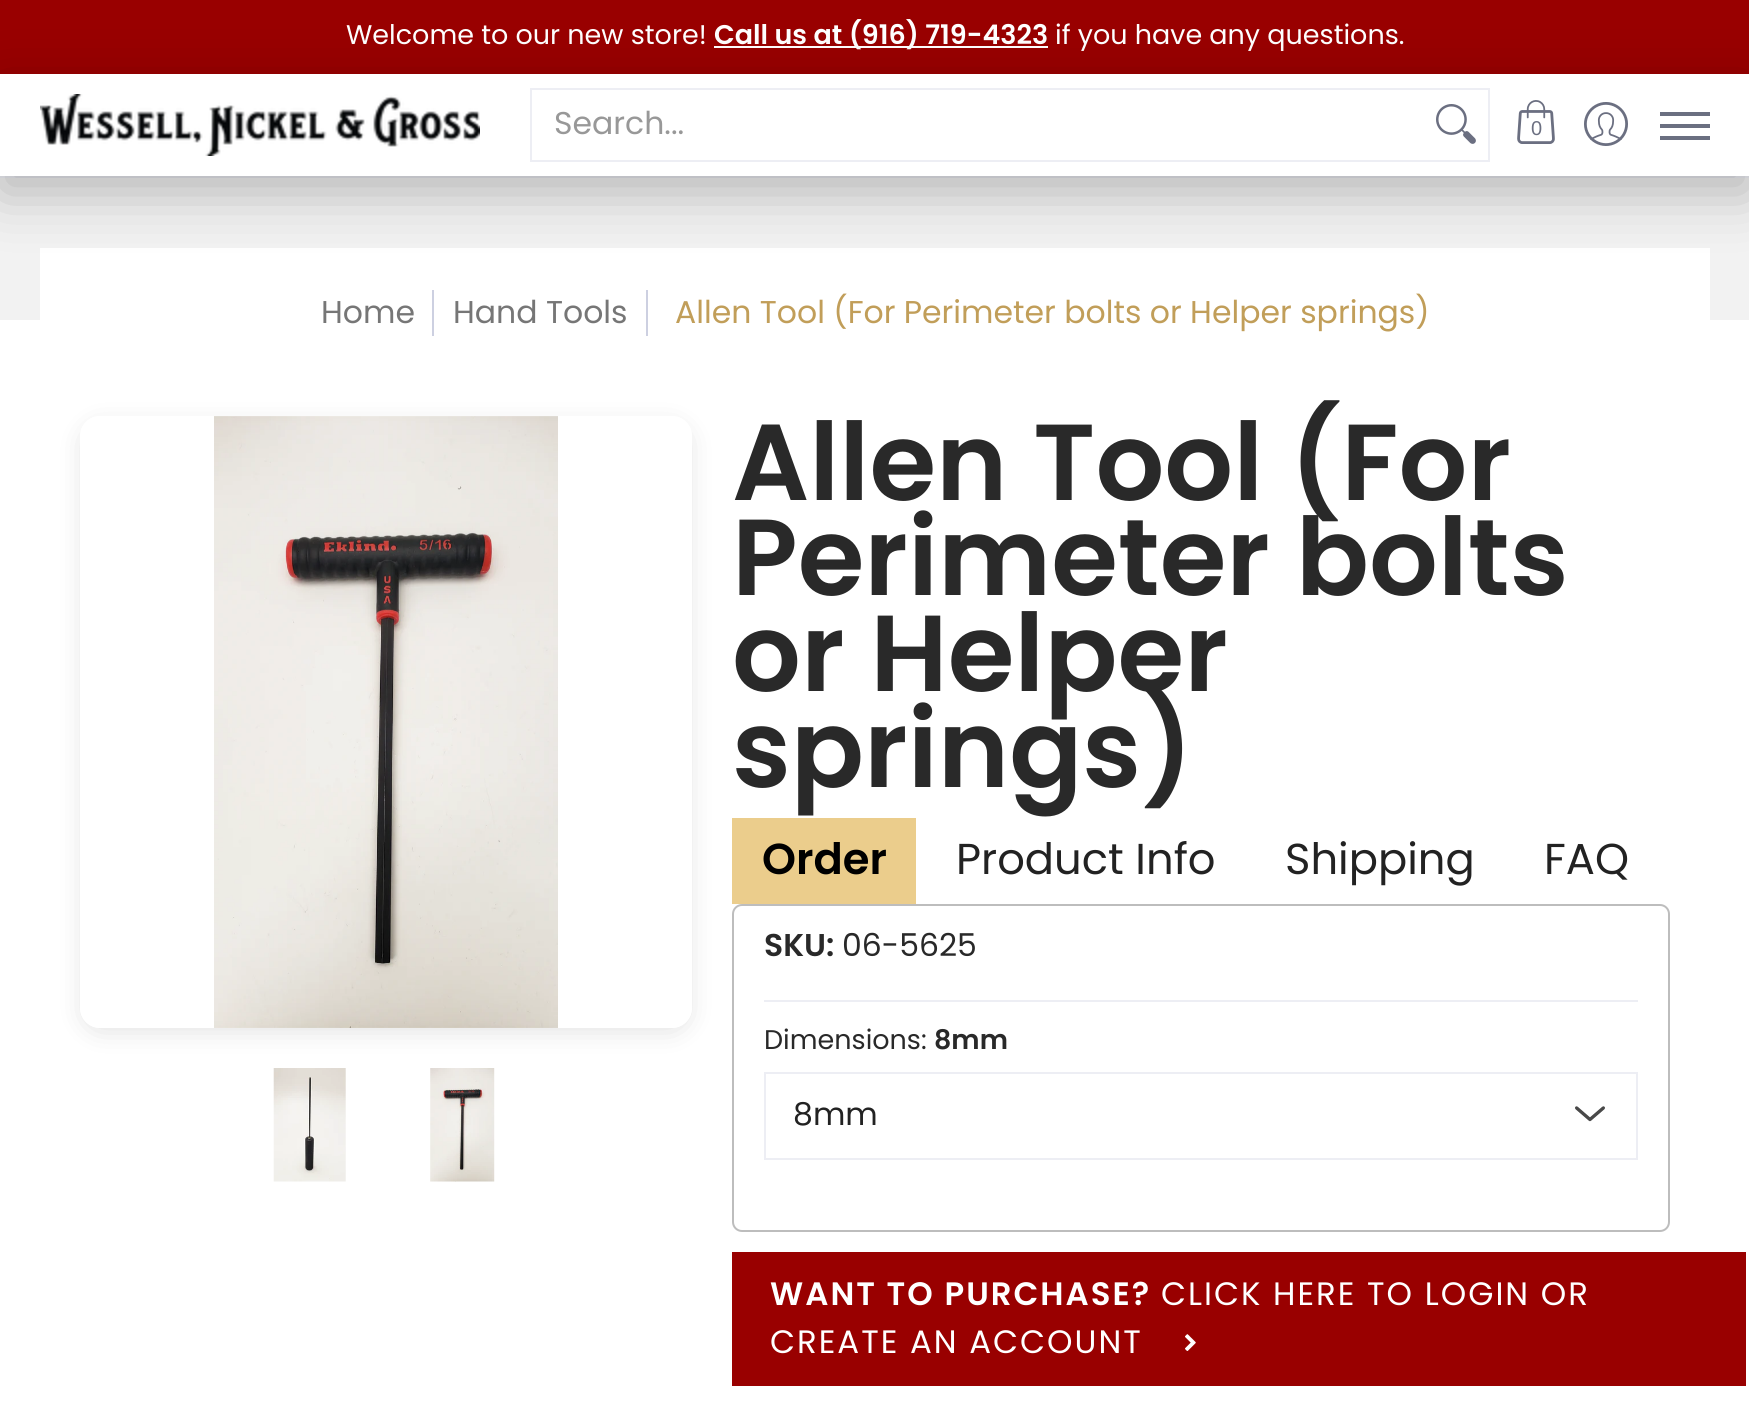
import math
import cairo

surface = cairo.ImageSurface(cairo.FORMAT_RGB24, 1749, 1420)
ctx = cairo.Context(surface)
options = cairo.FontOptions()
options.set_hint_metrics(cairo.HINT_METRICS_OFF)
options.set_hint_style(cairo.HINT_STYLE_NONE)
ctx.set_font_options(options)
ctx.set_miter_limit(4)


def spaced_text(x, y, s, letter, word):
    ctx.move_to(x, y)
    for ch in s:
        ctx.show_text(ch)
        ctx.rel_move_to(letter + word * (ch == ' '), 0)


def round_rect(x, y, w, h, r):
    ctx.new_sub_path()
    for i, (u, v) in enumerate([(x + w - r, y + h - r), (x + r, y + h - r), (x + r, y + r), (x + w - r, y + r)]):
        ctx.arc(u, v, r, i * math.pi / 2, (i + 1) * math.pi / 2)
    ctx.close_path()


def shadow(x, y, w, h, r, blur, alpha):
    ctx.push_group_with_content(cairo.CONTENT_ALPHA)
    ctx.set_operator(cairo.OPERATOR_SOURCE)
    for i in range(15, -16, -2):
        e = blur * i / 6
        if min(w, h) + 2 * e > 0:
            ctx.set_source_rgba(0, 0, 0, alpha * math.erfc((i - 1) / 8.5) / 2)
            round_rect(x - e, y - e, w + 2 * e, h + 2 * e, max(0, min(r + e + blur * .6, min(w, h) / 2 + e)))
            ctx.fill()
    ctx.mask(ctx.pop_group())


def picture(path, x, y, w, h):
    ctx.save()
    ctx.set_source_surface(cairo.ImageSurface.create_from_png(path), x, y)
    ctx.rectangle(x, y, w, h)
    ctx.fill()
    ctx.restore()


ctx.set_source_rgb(1, 1, 1)
ctx.paint()
ctx.set_source_rgb(0.6, 0, 0)
ctx.rectangle(0, 0, 1749, 74)
ctx.fill()
ctx.select_font_face("Poppins")
ctx.set_font_size(27)
ctx.set_source_rgb(1, 1, 1)
ctx.move_to(346, 44)
ctx.show_text("Welcome to our new store!")
ctx.rectangle(714, 46, 334, 2)
ctx.fill()
ctx.select_font_face("Poppins SemiBold")
ctx.move_to(714, 44)
ctx.show_text("Call us at (916) 719-4323")
ctx.select_font_face("Poppins")
ctx.move_to(1055, 44)
ctx.show_text("if you have any questions.")
ctx.set_source_rgb(0.929, 0.933, 0.957)
ctx.rectangle(0, 176, 1749, 2)
ctx.fill()
ctx.set_source_rgb(0.949, 0.949, 0.949)
ctx.rectangle(0, 178, 1749, 142)
ctx.fill()
ctx.set_source_rgb(1, 1, 1)
ctx.rectangle(40, 248, 1670, 72)
ctx.fill()
ctx.save()
ctx.set_fill_rule(cairo.FILL_RULE_EVEN_ODD)
ctx.new_path()
ctx.move_to(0, 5)
ctx.line_to(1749, 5)
ctx.line_to(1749, 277)
ctx.line_to(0, 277)
ctx.close_path()
ctx.move_to(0, 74)
ctx.line_to(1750, 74)
ctx.line_to(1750, 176)
ctx.line_to(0, 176)
ctx.close_path()
ctx.clip()
ctx.set_source_rgb(0, 0, 0)
shadow(0, 90, 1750, 102, 0, 28, 0.26)
ctx.restore()
picture("img1.png", 40, 94, 440, 62)
ctx.rectangle(531, 89, 958, 72)
ctx.set_source_rgb(0.929, 0.933, 0.957)
ctx.stroke()
ctx.set_font_size(31.5)
ctx.set_source_rgb(0.596, 0.596, 0.596)
ctx.move_to(554, 134)
ctx.show_text("Search...")
picture("img2.png", 1436, 104, 40, 40)
picture("img3.png", 1517, 100, 38, 44)
ctx.select_font_face("Liberation Sans")
ctx.set_font_size(20)
ctx.set_source_rgb(0.42, 0.435, 0.506)
ctx.move_to(1531, 135)
ctx.show_text("0")
picture("img4.png", 1584, 102, 44, 44)
ctx.rectangle(1660, 112, 50, 4)
ctx.fill()
ctx.rectangle(1660, 136, 50, 4)
ctx.fill()
ctx.rectangle(1660, 124, 50, 4)
ctx.fill()
ctx.select_font_face("Poppins")
ctx.set_font_size(31.5)
ctx.set_source_rgb(0.463, 0.463, 0.463)
ctx.move_to(321, 323)
ctx.show_text("Home")
ctx.set_source_rgb(0.804, 0.816, 0.882)
ctx.rectangle(432, 290, 2, 46)
ctx.fill()
ctx.set_source_rgb(0.463, 0.463, 0.463)
ctx.move_to(453, 323)
ctx.show_text("Hand Tools")
ctx.set_source_rgb(0.804, 0.816, 0.882)
ctx.rectangle(646, 290, 2, 46)
ctx.fill()
ctx.set_source_rgb(0.757, 0.62, 0.349)
ctx.move_to(675, 323)
ctx.show_text("Allen Tool (For Perimeter bolts or Helper springs)")
ctx.save()
ctx.set_fill_rule(cairo.FILL_RULE_EVEN_ODD)
ctx.new_path()
ctx.move_to(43, 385)
ctx.line_to(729, 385)
ctx.line_to(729, 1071)
ctx.line_to(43, 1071)
ctx.close_path()
ctx.move_to(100, 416)
ctx.line_to(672, 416)
ctx.curve_to(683, 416, 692, 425, 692, 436)
ctx.line_to(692, 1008)
ctx.curve_to(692, 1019, 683, 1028, 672, 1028)
ctx.line_to(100, 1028)
ctx.curve_to(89, 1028, 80, 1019, 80, 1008)
ctx.line_to(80, 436)
ctx.curve_to(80, 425, 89, 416, 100, 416)
ctx.close_path()
ctx.clip()
ctx.set_source_rgb(0, 0, 0)
shadow(86, 428, 600, 600, 14, 14, 0.14)
ctx.restore()
picture("img5.png", 214, 416, 344, 612)
picture("img6.png", 273, 1068, 73, 114)
picture("img7.png", 430, 1068, 65, 114)
ctx.select_font_face("Poppins SemiBold")
ctx.set_font_size(108)
ctx.set_source_rgb(0.161, 0.161, 0.161)
ctx.move_to(732, 500)
ctx.show_text("Allen Tool (For")
ctx.move_to(732, 595)
ctx.show_text("Perimeter bolts")
ctx.move_to(732, 691)
ctx.show_text("or Helper")
ctx.move_to(732, 787)
ctx.show_text("springs)")
ctx.set_source_rgb(0.918, 0.804, 0.549)
ctx.rectangle(732, 818, 184, 86)
ctx.fill()
ctx.set_font_size(43.25)
ctx.set_source_rgb(0, 0, 0)
ctx.move_to(762, 874)
ctx.show_text("Order")
ctx.select_font_face("Poppins")
ctx.set_source_rgb(0.133, 0.133, 0.133)
ctx.move_to(956, 874)
ctx.show_text("Product Info")
ctx.move_to(1285, 874)
ctx.show_text("Shipping")
ctx.move_to(1544, 874)
ctx.show_text("FAQ")
round_rect(733, 905, 936, 326, 9)
ctx.set_source_rgb(0.741, 0.741, 0.741)
ctx.stroke()
ctx.set_source_rgb(0.929, 0.933, 0.957)
ctx.rectangle(764, 1000, 874, 2)
ctx.fill()
ctx.select_font_face("Poppins SemiBold")
ctx.set_font_size(31.5)
ctx.set_source_rgb(0.161, 0.161, 0.161)
ctx.move_to(764, 956)
ctx.show_text("SKU:")
ctx.select_font_face("Poppins")
ctx.move_to(842, 956)
ctx.show_text("06-5625")
ctx.rectangle(765, 1073, 872, 86)
ctx.set_source_rgb(0.929, 0.933, 0.957)
ctx.stroke()
ctx.set_font_size(27)
ctx.set_source_rgb(0.161, 0.161, 0.161)
ctx.move_to(764, 1049)
ctx.show_text("Dimensions:")
ctx.select_font_face("Poppins SemiBold")
ctx.move_to(934, 1049)
ctx.show_text("8mm")
ctx.select_font_face("Poppins")
ctx.set_font_size(31.5)
ctx.set_source_rgb(0.133, 0.133, 0.133)
ctx.move_to(793, 1125)
ctx.show_text("8mm")
picture("img8.png", 1575, 1106, 30, 16)
ctx.set_source_rgb(0.6, 0, 0)
ctx.rectangle(732, 1252, 1014, 134)
ctx.fill()
ctx.select_font_face("Poppins SemiBold")
ctx.set_font_size(32.4)
ctx.set_source_rgb(1, 1, 1)
spaced_text(770, 1305, "WANT TO PURCHASE?", 2, 0)
ctx.select_font_face("Poppins")
spaced_text(1161, 1305, "CLICK HERE TO LOGIN OR", 2, 0)
spaced_text(770, 1353, "CREATE AN ACCOUNT", 2, 0)
picture("img9.png", 1185, 1334, 11, 17)
surface.write_to_png("page.png")
